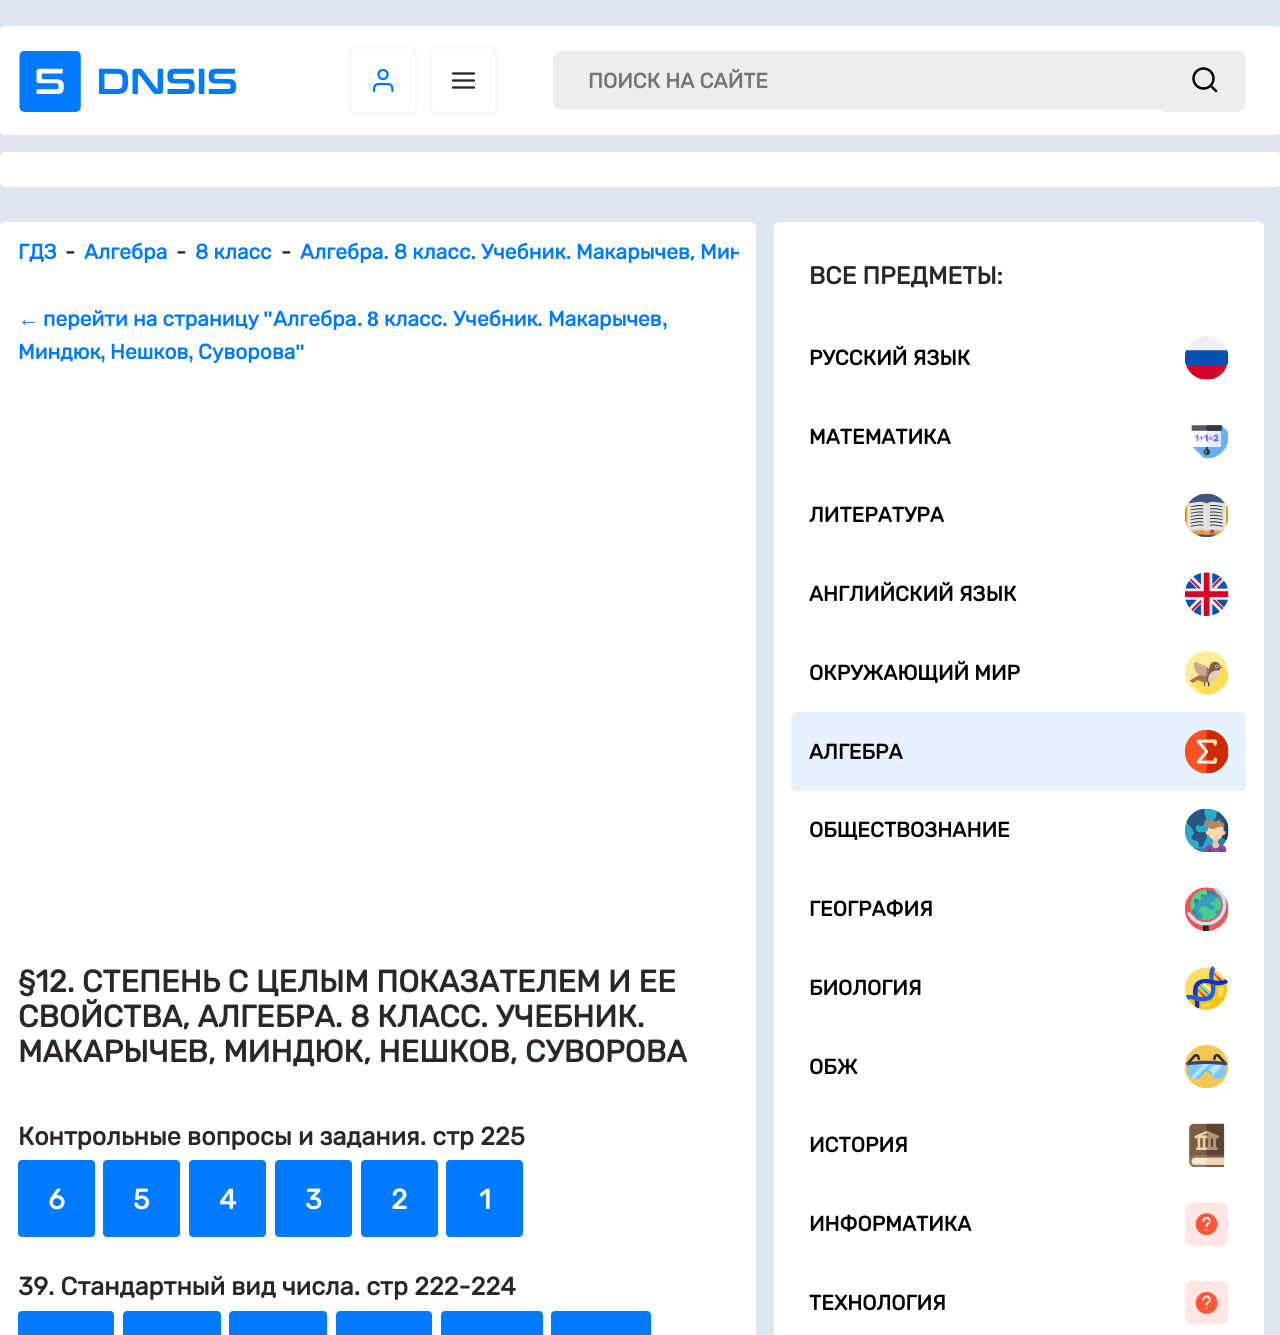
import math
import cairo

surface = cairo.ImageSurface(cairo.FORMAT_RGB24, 1280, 1335)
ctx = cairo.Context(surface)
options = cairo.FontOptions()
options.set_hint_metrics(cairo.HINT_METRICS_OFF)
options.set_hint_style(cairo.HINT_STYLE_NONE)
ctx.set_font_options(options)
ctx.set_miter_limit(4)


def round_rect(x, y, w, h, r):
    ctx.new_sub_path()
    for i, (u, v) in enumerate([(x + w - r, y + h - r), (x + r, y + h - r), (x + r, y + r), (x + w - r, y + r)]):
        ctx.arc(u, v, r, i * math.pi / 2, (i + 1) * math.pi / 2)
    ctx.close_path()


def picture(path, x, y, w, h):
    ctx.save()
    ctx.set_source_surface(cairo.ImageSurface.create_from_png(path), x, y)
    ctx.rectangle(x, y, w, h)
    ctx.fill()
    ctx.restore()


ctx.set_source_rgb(0.871, 0.902, 0.949)
ctx.paint()
ctx.set_source_rgb(1, 1, 1)
round_rect(0, 26, 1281, 109, 5)
ctx.fill()
picture("img1.png", 19, 51, 217, 61)
round_rect(350, 48, 66, 66, 7)
ctx.set_source_rgb(0.969, 0.969, 0.969)
ctx.set_line_width(4)
ctx.stroke()
ctx.set_source_rgb(1, 1, 1)
round_rect(352, 49, 63, 63, 5)
ctx.fill()
ctx.new_path()
ctx.move_to(392.5, 91)
ctx.curve_to(392.5, 83.5, 390, 84, 383, 84)
ctx.curve_to(376.5, 84, 374, 83.5, 374, 91)
ctx.set_source_rgb(0, 0.482, 1)
ctx.set_line_width(2.3)
ctx.set_line_cap(cairo.LINE_CAP_ROUND)
ctx.set_line_join(cairo.LINE_JOIN_ROUND)
ctx.stroke()
ctx.arc(383, 74.5, 4.5, 0, 2 * math.pi)
ctx.set_line_cap(cairo.LINE_CAP_BUTT)
ctx.set_line_join(cairo.LINE_JOIN_MITER)
ctx.stroke()
round_rect(431, 48, 66, 66, 7)
ctx.set_source_rgb(0.969, 0.969, 0.969)
ctx.set_line_width(4)
ctx.stroke()
ctx.set_source_rgb(1, 1, 1)
round_rect(432, 49, 63, 63, 5)
ctx.fill()
ctx.new_path()
ctx.move_to(453, 80.5)
ctx.line_to(474, 80.5)
ctx.move_to(453, 73.5)
ctx.line_to(474, 73.5)
ctx.move_to(453, 87.5)
ctx.line_to(474, 87.5)
ctx.set_source_rgb(0.169, 0.153, 0.149)
ctx.set_line_width(2.3)
ctx.set_line_cap(cairo.LINE_CAP_ROUND)
ctx.set_line_join(cairo.LINE_JOIN_ROUND)
ctx.stroke()
ctx.set_source_rgb(0.929, 0.929, 0.929)
ctx.new_path()
ctx.move_to(562, 51)
ctx.line_to(1164, 51)
ctx.line_to(1164, 110)
ctx.line_to(562, 110)
ctx.curve_to(557, 110, 553, 106, 553, 101)
ctx.line_to(553, 60)
ctx.curve_to(553, 55, 557, 51, 562, 51)
ctx.close_path()
ctx.fill()
ctx.select_font_face("Rubik", cairo.FONT_SLANT_NORMAL, cairo.FONT_WEIGHT_BOLD)
ctx.set_font_size(21)
ctx.set_source_rgb(0.459, 0.459, 0.459)
ctx.move_to(588, 88)
ctx.show_text("ПОИСК НА САЙТЕ")
ctx.set_source_rgb(0.929, 0.929, 0.929)
ctx.new_path()
ctx.move_to(1164, 51)
ctx.line_to(1237, 51)
ctx.curve_to(1242, 51, 1246, 55, 1246, 60)
ctx.line_to(1246, 103)
ctx.curve_to(1246, 108, 1242, 112, 1237, 112)
ctx.line_to(1164, 112)
ctx.close_path()
ctx.fill()
ctx.arc(1203.5, 78.5, 10, 0, 2 * math.pi)
ctx.set_source_rgb(0, 0, 0)
ctx.set_line_width(2.5)
ctx.set_line_cap(cairo.LINE_CAP_BUTT)
ctx.set_line_join(cairo.LINE_JOIN_MITER)
ctx.stroke()
ctx.new_path()
ctx.move_to(1216, 91)
ctx.line_to(1210.5, 85.5)
ctx.set_line_cap(cairo.LINE_CAP_ROUND)
ctx.set_line_join(cairo.LINE_JOIN_ROUND)
ctx.stroke()
ctx.set_source_rgb(1, 1, 1)
round_rect(0, 152, 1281, 35, 5)
ctx.fill()
round_rect(0, 222, 756, 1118, 5)
ctx.fill()
ctx.set_source_rgb(0, 0.482, 1)
ctx.move_to(18, 259)
ctx.show_text("ГДЗ")
ctx.set_source_rgb(0.169, 0.153, 0.149)
ctx.move_to(65, 259)
ctx.show_text("-")
ctx.set_source_rgb(0, 0.482, 1)
ctx.move_to(84, 259)
ctx.show_text("Алгебра")
ctx.set_source_rgb(0.169, 0.153, 0.149)
ctx.move_to(176, 259)
ctx.show_text("-")
ctx.set_source_rgb(0, 0.482, 1)
ctx.move_to(195, 259)
ctx.show_text("8 класс")
ctx.set_source_rgb(0.169, 0.153, 0.149)
ctx.move_to(281, 259)
ctx.show_text("-")
ctx.save()
round_rect(18, 240, 721, 24, 5)
ctx.clip()
ctx.set_source_rgb(0, 0.482, 1)
ctx.move_to(300, 259)
ctx.show_text("Алгебра. 8 класс. Учебник. Макарычев, Мин")
ctx.restore()
ctx.select_font_face("Liberation Sans", cairo.FONT_SLANT_NORMAL, cairo.FONT_WEIGHT_BOLD)
ctx.set_source_rgb(0, 0.482, 1)
ctx.move_to(18, 326)
ctx.show_text("←")
ctx.select_font_face("Rubik", cairo.FONT_SLANT_NORMAL, cairo.FONT_WEIGHT_BOLD)
ctx.move_to(43, 326)
ctx.show_text("перейти на страницу")
ctx.select_font_face("Liberation Sans", cairo.FONT_SLANT_NORMAL, cairo.FONT_WEIGHT_BOLD)
ctx.move_to(263, 326)
ctx.show_text("\"")
ctx.select_font_face("Rubik", cairo.FONT_SLANT_NORMAL, cairo.FONT_WEIGHT_BOLD)
ctx.move_to(273, 326)
ctx.show_text("Алгебра")
ctx.select_font_face("Liberation Sans", cairo.FONT_SLANT_NORMAL, cairo.FONT_WEIGHT_BOLD)
ctx.move_to(357, 326)
ctx.show_text(".")
ctx.move_to(367, 326)
ctx.show_text("8")
ctx.select_font_face("Rubik", cairo.FONT_SLANT_NORMAL, cairo.FONT_WEIGHT_BOLD)
ctx.move_to(384, 326)
ctx.show_text("класс")
ctx.select_font_face("Liberation Sans", cairo.FONT_SLANT_NORMAL, cairo.FONT_WEIGHT_BOLD)
ctx.move_to(442, 326)
ctx.show_text(".")
ctx.select_font_face("Rubik", cairo.FONT_SLANT_NORMAL, cairo.FONT_WEIGHT_BOLD)
ctx.move_to(453, 326)
ctx.show_text("Учебник")
ctx.select_font_face("Liberation Sans", cairo.FONT_SLANT_NORMAL, cairo.FONT_WEIGHT_BOLD)
ctx.move_to(537, 326)
ctx.show_text(".")
ctx.select_font_face("Rubik", cairo.FONT_SLANT_NORMAL, cairo.FONT_WEIGHT_BOLD)
ctx.move_to(548, 326)
ctx.show_text("Макарычев")
ctx.select_font_face("Liberation Sans", cairo.FONT_SLANT_NORMAL, cairo.FONT_WEIGHT_BOLD)
ctx.move_to(662, 326)
ctx.show_text(",")
ctx.select_font_face("Rubik", cairo.FONT_SLANT_NORMAL, cairo.FONT_WEIGHT_BOLD)
ctx.move_to(18, 359)
ctx.show_text("Миндюк")
ctx.move_to(110, 359)
ctx.show_text("Нешков")
ctx.move_to(198, 359)
ctx.show_text("Суворова")
ctx.select_font_face("Liberation Sans", cairo.FONT_SLANT_NORMAL, cairo.FONT_WEIGHT_BOLD)
ctx.move_to(295, 359)
ctx.show_text("\"")
ctx.move_to(100, 359)
ctx.show_text(",")
ctx.move_to(188, 359)
ctx.show_text(",")
ctx.select_font_face("Rubik", cairo.FONT_SLANT_NORMAL, cairo.FONT_WEIGHT_BOLD)
ctx.set_font_size(30.8)
ctx.set_source_rgb(0.169, 0.153, 0.149)
ctx.move_to(18, 992)
ctx.show_text("§12. СТЕПЕНЬ С ЦЕЛЫМ ПОКАЗАТЕЛЕМ И ЕЕ")
ctx.move_to(18, 1027)
ctx.show_text("СВОЙСТВА, АЛГЕБРА. 8 КЛАСС. УЧЕБНИК.")
ctx.move_to(18, 1062)
ctx.show_text("МАКАРЫЧЕВ, МИНДЮК, НЕШКОВ, СУВОРОВА")
ctx.set_font_size(25.2)
ctx.move_to(18, 1145)
ctx.show_text("Контрольные вопросы и задания. стр 225")
ctx.set_source_rgb(0, 0.478, 1)
round_rect(18, 1160, 77, 77, 4)
ctx.fill()
ctx.set_font_size(28)
ctx.set_source_rgb(1, 1, 1)
ctx.move_to(48, 1209)
ctx.show_text("6")
ctx.set_source_rgb(0, 0.478, 1)
round_rect(103, 1160, 77, 77, 4)
ctx.fill()
ctx.set_source_rgb(1, 1, 1)
ctx.move_to(133, 1209)
ctx.show_text("5")
ctx.set_source_rgb(0, 0.478, 1)
round_rect(189, 1160, 77, 77, 4)
ctx.fill()
ctx.set_source_rgb(1, 1, 1)
ctx.move_to(219, 1209)
ctx.show_text("4")
ctx.set_source_rgb(0, 0.478, 1)
round_rect(275, 1160, 77, 77, 4)
ctx.fill()
ctx.set_source_rgb(1, 1, 1)
ctx.move_to(305, 1209)
ctx.show_text("3")
ctx.set_source_rgb(0, 0.478, 1)
round_rect(361, 1160, 77, 77, 4)
ctx.fill()
ctx.set_source_rgb(1, 1, 1)
ctx.move_to(391, 1209)
ctx.show_text("2")
ctx.set_source_rgb(0, 0.478, 1)
round_rect(446, 1160, 77, 77, 4)
ctx.fill()
ctx.set_source_rgb(1, 1, 1)
ctx.move_to(479, 1209)
ctx.show_text("1")
ctx.set_font_size(25.2)
ctx.set_source_rgb(0.169, 0.153, 0.149)
ctx.move_to(18, 1295)
ctx.show_text("39. Стандартный вид числа. стр 222-224")
ctx.set_source_rgb(0, 0.478, 1)
round_rect(18, 1311, 96, 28, 4)
ctx.fill()
round_rect(123, 1311, 98, 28, 4)
ctx.fill()
round_rect(229, 1311, 98, 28, 4)
ctx.fill()
round_rect(336, 1311, 96, 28, 4)
ctx.fill()
round_rect(441, 1311, 102, 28, 4)
ctx.fill()
round_rect(551, 1311, 100, 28, 4)
ctx.fill()
ctx.set_source_rgb(1, 1, 1)
round_rect(774, 222, 490, 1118, 5)
ctx.fill()
ctx.set_font_size(24.5)
ctx.set_source_rgb(0.169, 0.153, 0.149)
ctx.move_to(809, 284)
ctx.show_text("ВСЕ ПРЕДМЕТЫ:")
ctx.set_font_size(21)
ctx.set_source_rgb(0, 0, 0)
ctx.move_to(809, 365)
ctx.show_text("РУССКИЙ ЯЗЫК")
picture("img2.png", 1184, 336, 45, 44)
ctx.move_to(809, 444)
ctx.show_text("МАТЕМАТИКА")
picture("img3.png", 1191, 425, 38, 34)
ctx.move_to(809, 522)
ctx.show_text("ЛИТЕРАТУРА")
picture("img4.png", 1185, 493, 44, 44)
ctx.move_to(809, 601)
ctx.show_text("АНГЛИЙСКИЙ ЯЗЫК")
picture("img5.png", 1184, 572, 45, 44)
ctx.move_to(809, 680)
ctx.show_text("ОКРУЖАЮЩИЙ МИР")
picture("img6.png", 1185, 651, 44, 44)
ctx.set_source_rgb(0.902, 0.949, 1)
round_rect(791, 712, 455, 79, 5)
ctx.fill()
ctx.set_source_rgb(0, 0, 0)
ctx.move_to(809, 759)
ctx.show_text("АЛГЕБРА")
picture("img7.png", 1185, 729, 44, 45)
ctx.move_to(809, 837)
ctx.show_text("ОБЩЕСТВОЗНАНИЕ")
picture("img8.png", 1185, 808, 44, 45)
ctx.move_to(809, 916)
ctx.show_text("ГЕОГРАФИЯ")
picture("img9.png", 1185, 887, 44, 44)
ctx.move_to(809, 995)
ctx.show_text("БИОЛОГИЯ")
picture("img10.png", 1185, 966, 43, 44)
ctx.move_to(809, 1074)
ctx.show_text("ОБЖ")
picture("img11.png", 1185, 1045, 44, 44)
ctx.move_to(809, 1152)
ctx.show_text("ИСТОРИЯ")
picture("img12.png", 1189, 1123, 36, 45)
ctx.move_to(809, 1231)
ctx.show_text("ИНФОРМАТИКА")
picture("img13.png", 1185, 1202, 43, 44)
ctx.move_to(809, 1310)
ctx.show_text("ТЕХНОЛОГИЯ")
picture("img14.png", 1185, 1281, 43, 44)
surface.write_to_png("page.png")
